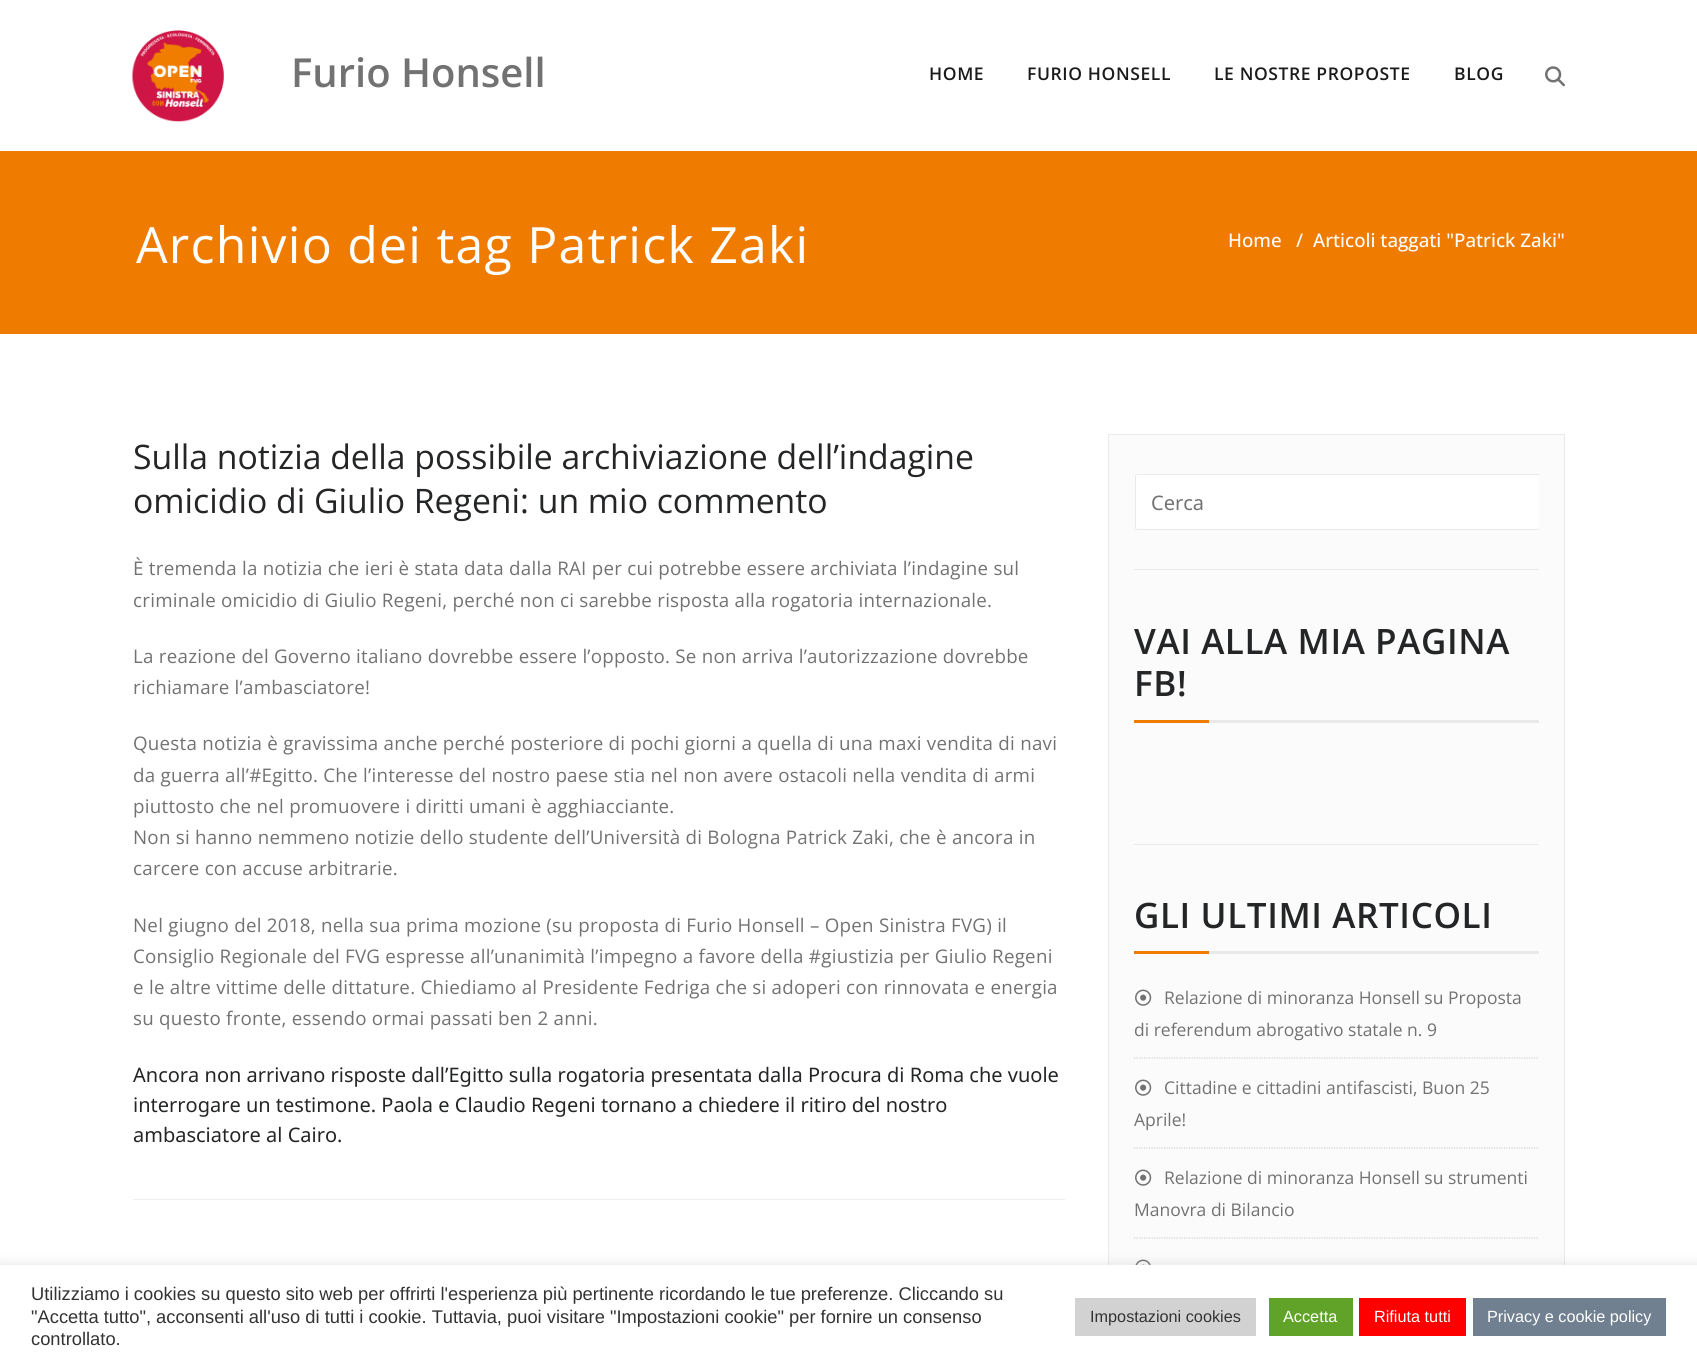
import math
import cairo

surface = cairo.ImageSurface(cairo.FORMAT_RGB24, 1697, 1367)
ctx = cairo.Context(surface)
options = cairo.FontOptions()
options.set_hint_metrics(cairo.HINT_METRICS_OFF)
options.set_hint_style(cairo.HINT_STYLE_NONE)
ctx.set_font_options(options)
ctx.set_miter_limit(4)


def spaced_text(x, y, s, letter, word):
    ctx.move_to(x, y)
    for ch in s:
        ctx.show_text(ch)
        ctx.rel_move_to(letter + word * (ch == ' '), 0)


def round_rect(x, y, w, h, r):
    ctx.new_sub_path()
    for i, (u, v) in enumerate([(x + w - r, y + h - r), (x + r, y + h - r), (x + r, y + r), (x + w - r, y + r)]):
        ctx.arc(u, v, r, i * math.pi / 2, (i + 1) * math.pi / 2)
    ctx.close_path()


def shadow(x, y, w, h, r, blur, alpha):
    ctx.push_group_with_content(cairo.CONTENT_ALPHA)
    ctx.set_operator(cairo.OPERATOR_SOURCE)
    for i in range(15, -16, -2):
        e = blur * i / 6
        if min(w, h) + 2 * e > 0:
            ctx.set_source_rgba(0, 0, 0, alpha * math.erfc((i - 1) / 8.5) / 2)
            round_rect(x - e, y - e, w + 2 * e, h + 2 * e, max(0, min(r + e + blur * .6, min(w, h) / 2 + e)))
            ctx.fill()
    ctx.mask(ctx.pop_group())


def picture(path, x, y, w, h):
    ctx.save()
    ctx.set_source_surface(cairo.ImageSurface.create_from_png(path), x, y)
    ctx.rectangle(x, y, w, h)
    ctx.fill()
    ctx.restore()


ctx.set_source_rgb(1, 1, 1)
ctx.paint()
picture("img1.png", 132, 30, 92, 92)
ctx.select_font_face("Open Sans SemiBold")
ctx.set_font_size(40)
ctx.set_source_rgb(0.447, 0.447, 0.447)
ctx.move_to(291, 87)
ctx.show_text("Furio Honsell")
ctx.set_font_size(17.5)
ctx.set_source_rgb(0.106, 0.106, 0.106)
spaced_text(929, 80, "HOME", 0.6, 0)
spaced_text(1027, 80, "FURIO HONSELL", 0.6, 0)
spaced_text(1214, 80, "LE NOSTRE PROPOSTE", 0.6, 0)
spaced_text(1454, 80, "BLOG", 0.6, 0)
picture("img2.png", 1545, 66, 20, 21)
ctx.set_source_rgb(0.937, 0.486, 0.004)
ctx.rectangle(0, 151, 1697, 183)
ctx.fill()
ctx.select_font_face("Open Sans")
ctx.set_font_size(50)
ctx.set_source_rgb(1, 1, 1)
spaced_text(136, 263, "Archivio dei tag Patrick Zaki", 1.25, 0)
ctx.select_font_face("Open Sans Medium")
ctx.set_font_size(18.75)
ctx.move_to(1228, 247)
ctx.show_text("Home")
ctx.move_to(1296, 247)
ctx.show_text("/")
ctx.move_to(1313, 247)
ctx.show_text("Articoli taggati \"Patrick Zaki\"")
ctx.set_source_rgb(0.933, 0.933, 0.933)
ctx.rectangle(133, 1199, 932, 1)
ctx.fill()
ctx.select_font_face("Open Sans")
ctx.set_font_size(33.75)
ctx.set_source_rgb(0.141, 0.145, 0.149)
ctx.move_to(133, 469)
ctx.show_text("Sulla notizia della possibile archiviazione dell’indagine")
ctx.move_to(133, 513)
ctx.show_text("omicidio di Giulio Regeni: un mio commento")
ctx.set_font_size(18.75)
ctx.set_source_rgb(0.447, 0.447, 0.447)
spaced_text(133, 575, "È tremenda la notizia che ieri è stata data dalla RAI per cui potrebbe essere archiviata l’indagine sul", 0.25, 0)
spaced_text(133, 607, "criminale omicidio di Giulio Regeni, perché non ci sarebbe risposta alla rogatoria internazionale.", 0.25, 0)
spaced_text(133, 663, "La reazione del Governo italiano dovrebbe essere l’opposto. Se non arriva l’autorizzazione dovrebbe", 0.25, 0)
spaced_text(133, 694, "richiamare l’ambasciatore!", 0.25, 0)
spaced_text(133, 750, "Questa notizia è gravissima anche perché posteriore di pochi giorni a quella di una maxi vendita di navi", 0.25, 0)
spaced_text(133, 782, "da guerra all’#Egitto. Che l’interesse del nostro paese stia nel non avere ostacoli nella vendita di armi", 0.25, 0)
spaced_text(133, 813, "piuttosto che nel promuovere i diritti umani è agghiacciante.", 0.25, 0)
spaced_text(133, 844, "Non si hanno nemmeno notizie dello studente dell’Università di Bologna Patrick Zaki, che è ancora in", 0.25, 0)
spaced_text(133, 875, "carcere con accuse arbitrarie.", 0.25, 0)
spaced_text(133, 932, "Nel giugno del 2018, nella sua prima mozione (su proposta di Furio Honsell – Open Sinistra FVG) il", 0.25, 0)
spaced_text(133, 963, "Consiglio Regionale del FVG espresse all’unanimità l’impegno a favore della #giustizia per Giulio Regeni", 0.25, 0)
spaced_text(133, 994, "e le altre vittime delle dittature. Chiediamo al Presidente Fedriga che si adoperi con rinnovata e energia", 0.25, 0)
spaced_text(133, 1025, "su questo fronte, essendo ormai passati ben 2 anni.", 0.25, 0)
ctx.select_font_face("Noto Sans")
ctx.set_font_size(20)
ctx.set_source_rgb(0.141, 0.145, 0.149)
ctx.move_to(133, 1082)
ctx.show_text("Ancora non arrivano risposte dall’Egitto sulla rogatoria presentata dalla Procura di Roma che vuole")
ctx.move_to(133, 1112)
ctx.show_text("interrogare un testimone. Paola e Claudio Regeni tornano a chiedere il ritiro del nostro")
ctx.move_to(133, 1142)
ctx.show_text("ambasciatore al Cairo.")
ctx.set_source_rgb(0.984, 0.984, 0.984)
ctx.rectangle(1109, 435, 455, 830)
ctx.fill()
ctx.rectangle(1108.5, 434.5, 456, 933)
ctx.set_source_rgb(0.914, 0.914, 0.914)
ctx.set_line_width(1)
ctx.stroke()
ctx.rectangle(1134, 569, 405, 1)
ctx.fill()
ctx.save()
ctx.rectangle(1134, 473, 405, 96)
ctx.clip()
ctx.set_source_rgb(1, 1, 1)
round_rect(1135.5, 474.5, 404, 55, 2)
ctx.fill_preserve()
ctx.set_source_rgb(0.914, 0.914, 0.914)
ctx.stroke()
ctx.restore()
ctx.set_source_rgb(0.447, 0.447, 0.447)
ctx.move_to(1151, 510)
ctx.show_text("Cerca")
ctx.set_source_rgb(0.914, 0.914, 0.914)
ctx.rectangle(1134, 844, 405, 1)
ctx.fill()
ctx.select_font_face("Open Sans SemiBold")
ctx.set_font_size(35)
ctx.set_source_rgb(0.141, 0.145, 0.149)
spaced_text(1134, 654, "VAI ALLA MIA PAGINA", 0.6, 0)
spaced_text(1134, 696, "FB!", 0.6, 0)
ctx.set_source_rgb(0.937, 0.486, 0.004)
ctx.rectangle(1134, 720, 75, 3)
ctx.fill()
ctx.set_source_rgb(0.914, 0.914, 0.914)
ctx.rectangle(1209, 720, 330, 3)
ctx.fill()
ctx.set_source_rgb(0.141, 0.145, 0.149)
spaced_text(1134, 928, "GLI ULTIMI ARTICOLI", 0.6, 0)
ctx.set_source_rgb(0.937, 0.486, 0.004)
ctx.rectangle(1134, 951, 75, 3)
ctx.fill()
ctx.set_source_rgb(0.914, 0.914, 0.914)
ctx.rectangle(1209, 951, 330, 3)
ctx.fill()
ctx.new_path()
ctx.move_to(1134, 1058)
ctx.line_to(1539, 1058)
ctx.set_source_rgb(0.82, 0.82, 0.82)
ctx.set_line_width(1.2)
ctx.set_dash([1.25, 1.25])
ctx.stroke()
picture("img3.png", 1135, 989, 17, 17)
ctx.select_font_face("Open Sans")
ctx.set_font_size(17.5)
ctx.set_source_rgb(0.447, 0.447, 0.447)
ctx.move_to(1164, 1004)
ctx.show_text("Relazione di minoranza Honsell su Proposta")
ctx.move_to(1134, 1036)
ctx.show_text("di referendum abrogativo statale n. 9")
ctx.new_path()
ctx.move_to(1134, 1148)
ctx.line_to(1539, 1148)
ctx.set_source_rgb(0.82, 0.82, 0.82)
ctx.stroke()
picture("img3.png", 1135, 1079, 17, 17)
ctx.set_source_rgb(0.447, 0.447, 0.447)
ctx.move_to(1164, 1094)
ctx.show_text("Cittadine e cittadini antifascisti, Buon 25")
ctx.move_to(1134, 1126)
ctx.show_text("Aprile!")
ctx.new_path()
ctx.move_to(1134, 1238)
ctx.line_to(1539, 1238)
ctx.set_source_rgb(0.82, 0.82, 0.82)
ctx.stroke()
picture("img3.png", 1135, 1169, 17, 17)
ctx.set_source_rgb(0.447, 0.447, 0.447)
ctx.move_to(1164, 1184)
ctx.show_text("Relazione di minoranza Honsell su strumenti")
ctx.move_to(1134, 1216)
ctx.show_text("Manovra di Bilancio")
picture("img4.png", 1135, 1259, 16, 6)
ctx.set_source_rgb(0.675, 0.671, 0.671)
shadow(0, 1264, 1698, 102, 0, 6, 0.3)
ctx.set_source_rgb(1, 1, 1)
ctx.rectangle(0, 1265, 1697, 102)
ctx.fill()
ctx.select_font_face("Liberation Sans")
ctx.set_font_size(18.33)
ctx.set_source_rgb(0.2, 0.2, 0.2)
ctx.move_to(31, 1300)
ctx.show_text("Utilizziamo i cookies su questo sito web per offrirti l'esperienza più pertinente ricordando le tue preferenze. Cliccando su")
ctx.move_to(31, 1323)
ctx.show_text("\"Accetta tutto\", acconsenti all'uso di tutti i cookie. Tuttavia, puoi visitare \"Impostazioni cookie\" per fornire un consenso")
ctx.move_to(31, 1345)
ctx.show_text("controllato.")
ctx.set_source_rgb(0.824, 0.824, 0.824)
ctx.rectangle(1075, 1298, 181, 38)
ctx.fill()
ctx.set_font_size(16.25)
ctx.set_source_rgb(0.2, 0.2, 0.2)
ctx.move_to(1090, 1322)
ctx.show_text("Impostazioni cookies")
ctx.set_source_rgb(0.38, 0.635, 0.161)
ctx.rectangle(1269, 1298, 84, 38)
ctx.fill()
ctx.set_source_rgb(1, 1, 1)
ctx.move_to(1283, 1322)
ctx.show_text("Accetta")
ctx.set_source_rgb(1, 0, 0)
ctx.rectangle(1359, 1298, 107, 38)
ctx.fill()
ctx.set_source_rgb(1, 1, 1)
ctx.move_to(1374, 1322)
ctx.show_text("Rifiuta tutti")
ctx.set_source_rgb(0.439, 0.502, 0.565)
ctx.rectangle(1473, 1298, 193, 38)
ctx.fill()
ctx.set_source_rgb(1, 1, 1)
ctx.move_to(1487, 1322)
ctx.show_text("Privacy e cookie policy")
surface.write_to_png("page.png")
